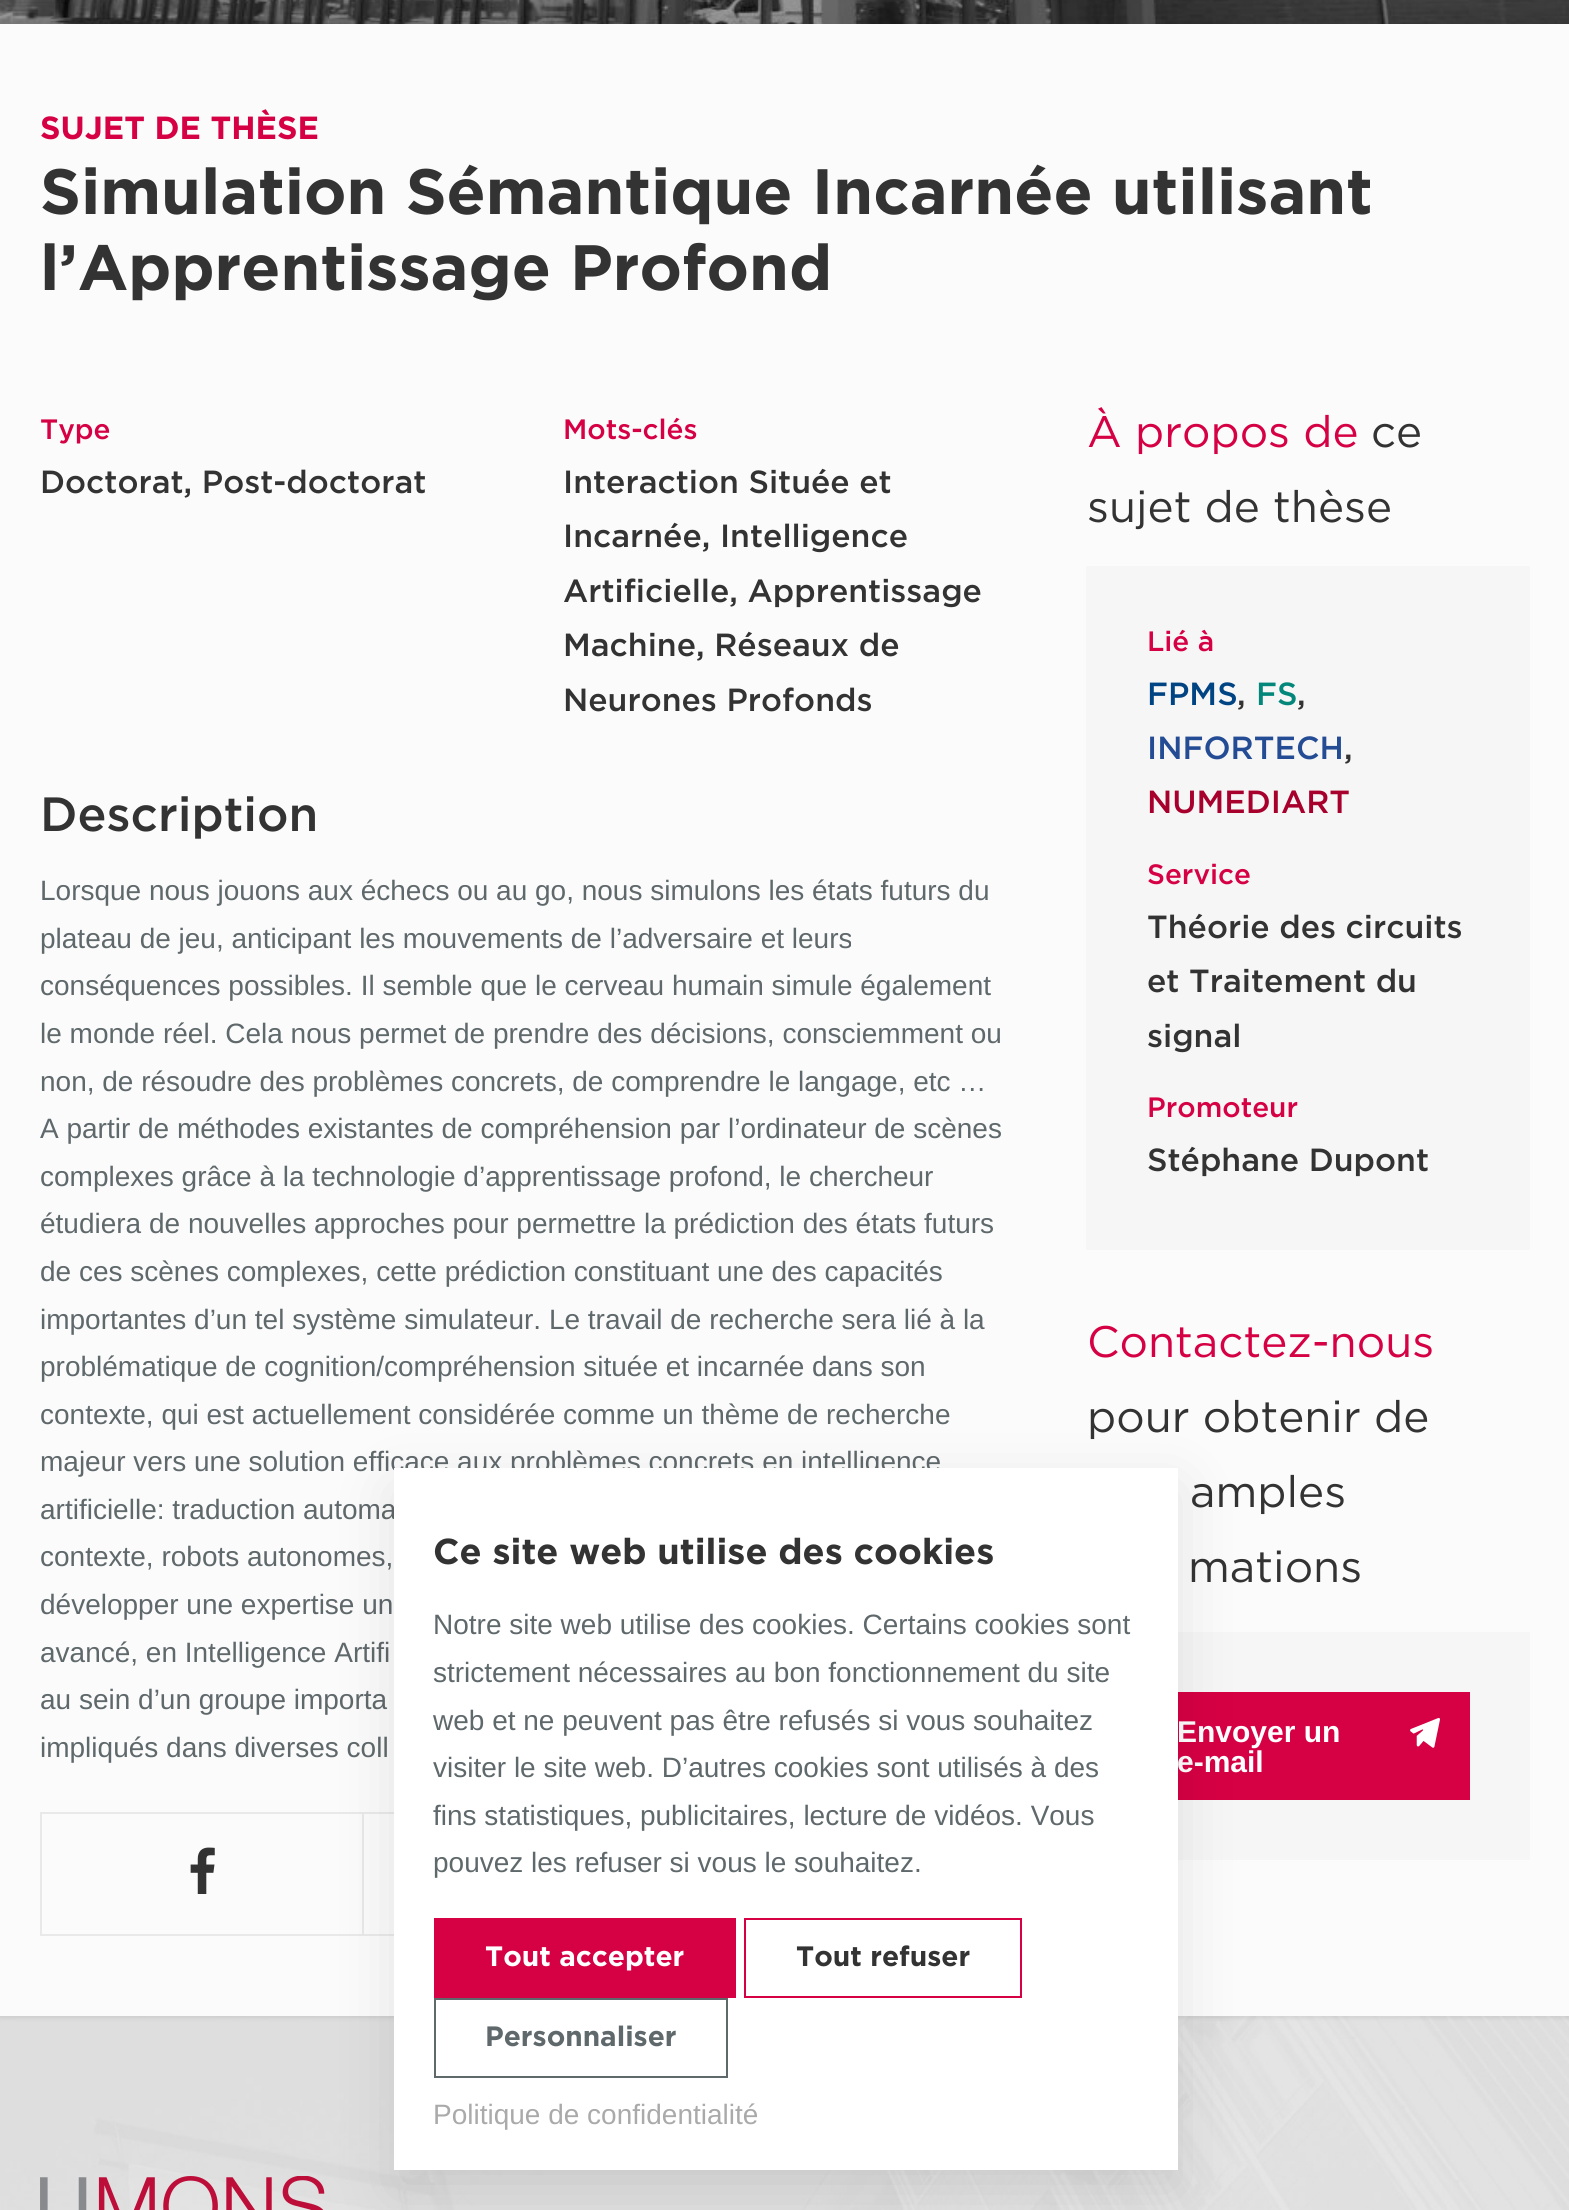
import math
import cairo

surface = cairo.ImageSurface(cairo.FORMAT_RGB24, 1569, 2210)
ctx = cairo.Context(surface)
options = cairo.FontOptions()
options.set_hint_metrics(cairo.HINT_METRICS_OFF)
options.set_hint_style(cairo.HINT_STYLE_NONE)
ctx.set_font_options(options)
ctx.set_miter_limit(4)


def round_rect(x, y, w, h, r):
    ctx.new_sub_path()
    for i, (u, v) in enumerate([(x + w - r, y + h - r), (x + r, y + h - r), (x + r, y + r), (x + w - r, y + r)]):
        ctx.arc(u, v, r, i * math.pi / 2, (i + 1) * math.pi / 2)
    ctx.close_path()


def shadow(x, y, w, h, r, blur, alpha):
    ctx.push_group_with_content(cairo.CONTENT_ALPHA)
    ctx.set_operator(cairo.OPERATOR_SOURCE)
    for i in range(15, -16, -2):
        e = blur * i / 6
        if min(w, h) + 2 * e > 0:
            ctx.set_source_rgba(0, 0, 0, alpha * math.erfc((i - 1) / 8.5) / 2)
            round_rect(x - e, y - e, w + 2 * e, h + 2 * e, max(0, min(r + e + blur * .6, min(w, h) / 2 + e)))
            ctx.fill()
    ctx.mask(ctx.pop_group())


def picture(path, x, y, w, h):
    ctx.save()
    ctx.set_source_surface(cairo.ImageSurface.create_from_png(path), x, y)
    ctx.rectangle(x, y, w, h)
    ctx.fill()
    ctx.restore()


ctx.set_source_rgb(1, 1, 1)
ctx.paint()
ctx.set_source_rgb(0.984, 0.984, 0.984)
ctx.rectangle(0, 24, 1569, 1992)
ctx.fill()
picture("img1.png", 0, 0, 1569, 24)
ctx.select_font_face("Gotham", cairo.FONT_SLANT_NORMAL, cairo.FONT_WEIGHT_BOLD)
ctx.set_font_size(32)
ctx.set_source_rgb(0.839, 0, 0.267)
ctx.move_to(40, 139)
ctx.show_text("SUJET DE THÈSE")
ctx.set_font_size(64)
ctx.set_source_rgb(0.2, 0.2, 0.2)
ctx.move_to(40, 214)
ctx.show_text("Simulation Sémantique Incarnée utilisant")
ctx.move_to(40, 290)
ctx.show_text("l’Apprentissage Profond")
ctx.select_font_face("Gotham Medium")
ctx.set_font_size(28)
ctx.set_source_rgb(0.839, 0, 0.267)
ctx.move_to(40, 439)
ctx.show_text("Type")
ctx.set_font_size(32)
ctx.set_source_rgb(0.2, 0.2, 0.2)
ctx.move_to(40, 493)
ctx.show_text("Doctorat, Post-doctorat")
ctx.set_font_size(28)
ctx.set_source_rgb(0.839, 0, 0.267)
ctx.move_to(563, 439)
ctx.show_text("Mots-clés")
ctx.set_font_size(32)
ctx.set_source_rgb(0.2, 0.2, 0.2)
ctx.move_to(563, 493)
ctx.show_text("Interaction Située et")
ctx.move_to(563, 547)
ctx.show_text("Incarnée, Intelligence")
ctx.move_to(563, 602)
ctx.show_text("Artificielle, Apprentissage")
ctx.move_to(563, 656)
ctx.show_text("Machine, Réseaux de")
ctx.move_to(563, 711)
ctx.show_text("Neurones Profonds")
ctx.set_font_size(48)
ctx.move_to(40, 831)
ctx.show_text("Description")
ctx.select_font_face("Liberation Sans")
ctx.set_font_size(28)
ctx.set_source_rgb(0.373, 0.408, 0.42)
ctx.move_to(40, 900)
ctx.show_text("Lorsque nous jouons aux échecs ou au go, nous simulons les états futurs du")
ctx.move_to(40, 948)
ctx.show_text("plateau de jeu, anticipant les mouvements de l’adversaire et leurs")
ctx.move_to(40, 995)
ctx.show_text("conséquences possibles. Il semble que le cerveau humain simule également")
ctx.move_to(40, 1043)
ctx.show_text("le monde réel. Cela nous permet de prendre des décisions, consciemment ou")
ctx.move_to(40, 1091)
ctx.show_text("non, de résoudre des problèmes concrets, de comprendre le langage, etc …")
ctx.move_to(40, 1138)
ctx.show_text("A partir de méthodes existantes de compréhension par l’ordinateur de scènes")
ctx.move_to(40, 1186)
ctx.show_text("complexes grâce à la technologie d’apprentissage profond, le chercheur")
ctx.move_to(40, 1233)
ctx.show_text("étudiera de nouvelles approches pour permettre la prédiction des états futurs")
ctx.move_to(40, 1281)
ctx.show_text("de ces scènes complexes, cette prédiction constituant une des capacités")
ctx.move_to(40, 1329)
ctx.show_text("importantes d’un tel système simulateur. Le travail de recherche sera lié à la")
ctx.move_to(40, 1376)
ctx.show_text("problématique de cognition/compréhension située et incarnée dans son")
ctx.move_to(40, 1424)
ctx.show_text("contexte, qui est actuellement considérée comme un thème de recherche")
ctx.move_to(40, 1471)
ctx.show_text("majeur vers une solution efficace aux problèmes concrets en intelligence")
ctx.move_to(40, 1519)
ctx.show_text("artificielle: traduction automa")
ctx.move_to(40, 1566)
ctx.show_text("contexte, robots autonomes,")
ctx.move_to(40, 1614)
ctx.show_text("développer une expertise un")
ctx.move_to(40, 1662)
ctx.show_text("avancé, en Intelligence Artifi")
ctx.move_to(40, 1709)
ctx.show_text("au sein d’un groupe importa")
ctx.move_to(40, 1757)
ctx.show_text("impliqués dans diverses coll")
ctx.rectangle(41, 1813, 964, 122)
ctx.set_source_rgb(0.914, 0.914, 0.914)
ctx.stroke()
picture("img2.png", 190, 1847, 25, 47)
ctx.rectangle(362, 1814, 2, 120)
ctx.fill()
ctx.select_font_face("Gotham")
ctx.set_font_size(44)
ctx.set_source_rgb(0.839, 0, 0.267)
ctx.move_to(1087, 447)
ctx.show_text("À propos de")
ctx.set_source_rgb(0.2, 0.2, 0.2)
ctx.move_to(1371, 447)
ctx.show_text("ce")
ctx.move_to(1087, 522)
ctx.show_text("sujet de thèse")
ctx.set_source_rgb(0.961, 0.961, 0.961)
ctx.rectangle(1086, 566, 444, 684)
ctx.fill()
ctx.select_font_face("Gotham Medium")
ctx.set_font_size(28)
ctx.set_source_rgb(0.839, 0, 0.267)
ctx.move_to(1147, 651)
ctx.show_text("Lié à")
ctx.set_font_size(32)
ctx.set_source_rgb(0, 0.267, 0.518)
ctx.move_to(1147, 705)
ctx.show_text("FPMS")
ctx.set_source_rgb(0.2, 0.2, 0.2)
ctx.move_to(1237, 705)
ctx.show_text(",")
ctx.set_source_rgb(0.008, 0.529, 0.478)
ctx.move_to(1256, 705)
ctx.show_text("FS")
ctx.set_source_rgb(0.2, 0.2, 0.2)
ctx.move_to(1297, 705)
ctx.show_text(",")
ctx.set_source_rgb(0.141, 0.298, 0.584)
ctx.move_to(1147, 759)
ctx.show_text("INFORTECH")
ctx.set_source_rgb(0.2, 0.2, 0.2)
ctx.move_to(1344, 759)
ctx.show_text(",")
ctx.set_source_rgb(0.659, 0, 0.176)
ctx.move_to(1147, 813)
ctx.show_text("NUMEDIART")
ctx.set_font_size(28)
ctx.set_source_rgb(0.839, 0, 0.267)
ctx.move_to(1147, 884)
ctx.show_text("Service")
ctx.set_font_size(32)
ctx.set_source_rgb(0.2, 0.2, 0.2)
ctx.move_to(1147, 938)
ctx.show_text("Théorie des circuits")
ctx.move_to(1147, 992)
ctx.show_text("et Traitement du")
ctx.move_to(1147, 1047)
ctx.show_text("signal")
ctx.set_font_size(28)
ctx.set_source_rgb(0.839, 0, 0.267)
ctx.move_to(1147, 1117)
ctx.show_text("Promoteur")
ctx.set_font_size(32)
ctx.set_source_rgb(0.2, 0.2, 0.2)
ctx.move_to(1147, 1171)
ctx.show_text("Stéphane Dupont")
ctx.select_font_face("Gotham")
ctx.set_font_size(44)
ctx.set_source_rgb(0.839, 0, 0.267)
ctx.move_to(1087, 1357)
ctx.show_text("Contactez-nous")
ctx.set_source_rgb(0.2, 0.2, 0.2)
ctx.move_to(1087, 1432)
ctx.show_text("pour obtenir de")
ctx.move_to(1190, 1507)
ctx.show_text("amples")
ctx.move_to(1188, 1582)
ctx.show_text("mations")
ctx.set_source_rgb(0.961, 0.961, 0.961)
ctx.rectangle(1178, 1632, 352, 228)
ctx.fill()
ctx.set_source_rgb(0.839, 0, 0.267)
ctx.rectangle(1178, 1692, 292, 108)
ctx.fill()
ctx.select_font_face("Liberation Sans", cairo.FONT_SLANT_NORMAL, cairo.FONT_WEIGHT_BOLD)
ctx.set_font_size(30)
ctx.set_source_rgb(1, 1, 1)
ctx.move_to(1177, 1742)
ctx.show_text("Envoyer un")
picture("img3.png", 1410, 1718, 30, 30)
ctx.move_to(1177, 1772)
ctx.show_text("e-mail")
picture("img4.png", 0, 2016, 1569, 194)
picture("img5.png", 40, 2176, 285, 34)
ctx.set_source_rgb(0, 0, 0)
shadow(394, 1488, 784, 702, 0, 30, 0.1)
ctx.set_source_rgb(1, 1, 1)
ctx.rectangle(394, 1468, 784, 702)
ctx.fill()
ctx.select_font_face("Gotham", cairo.FONT_SLANT_NORMAL, cairo.FONT_WEIGHT_BOLD)
ctx.set_font_size(36)
ctx.set_source_rgb(0.2, 0.2, 0.2)
ctx.move_to(433, 1564)
ctx.show_text("Ce site web utilise des cookies")
ctx.select_font_face("Liberation Sans")
ctx.set_font_size(28)
ctx.set_source_rgb(0.373, 0.408, 0.42)
ctx.move_to(433, 1634)
ctx.show_text("Notre site web utilise des cookies. Certains cookies sont")
ctx.move_to(433, 1682)
ctx.show_text("strictement nécessaires au bon fonctionnement du site")
ctx.move_to(433, 1730)
ctx.show_text("web et ne peuvent pas être refusés si vous souhaitez")
ctx.move_to(433, 1777)
ctx.show_text("visiter le site web. D’autres cookies sont utilisés à des")
ctx.move_to(433, 1825)
ctx.show_text("fins statistiques, publicitaires, lecture de vidéos. Vous")
ctx.move_to(433, 1872)
ctx.show_text("pouvez les refuser si vous le souhaitez.")
ctx.set_source_rgb(0.839, 0, 0.267)
ctx.rectangle(434, 1918, 302, 80)
ctx.fill()
ctx.select_font_face("Gotham", cairo.FONT_SLANT_NORMAL, cairo.FONT_WEIGHT_BOLD)
ctx.set_source_rgb(1, 1, 1)
ctx.move_to(485, 1966)
ctx.show_text("Tout accepter")
ctx.rectangle(745, 1919, 276, 78)
ctx.set_source_rgb(0.839, 0, 0.267)
ctx.stroke()
ctx.set_source_rgb(0.2, 0.2, 0.2)
ctx.move_to(796, 1966)
ctx.show_text("Tout refuser")
ctx.rectangle(435, 1999, 292, 78)
ctx.set_source_rgb(0.373, 0.408, 0.42)
ctx.stroke()
ctx.move_to(485, 2046)
ctx.show_text("Personnaliser")
ctx.select_font_face("Liberation Sans")
ctx.set_source_rgb(0.667, 0.667, 0.667)
ctx.move_to(433, 2124)
ctx.show_text("Politique de confidentialité")
surface.write_to_png("page.png")
